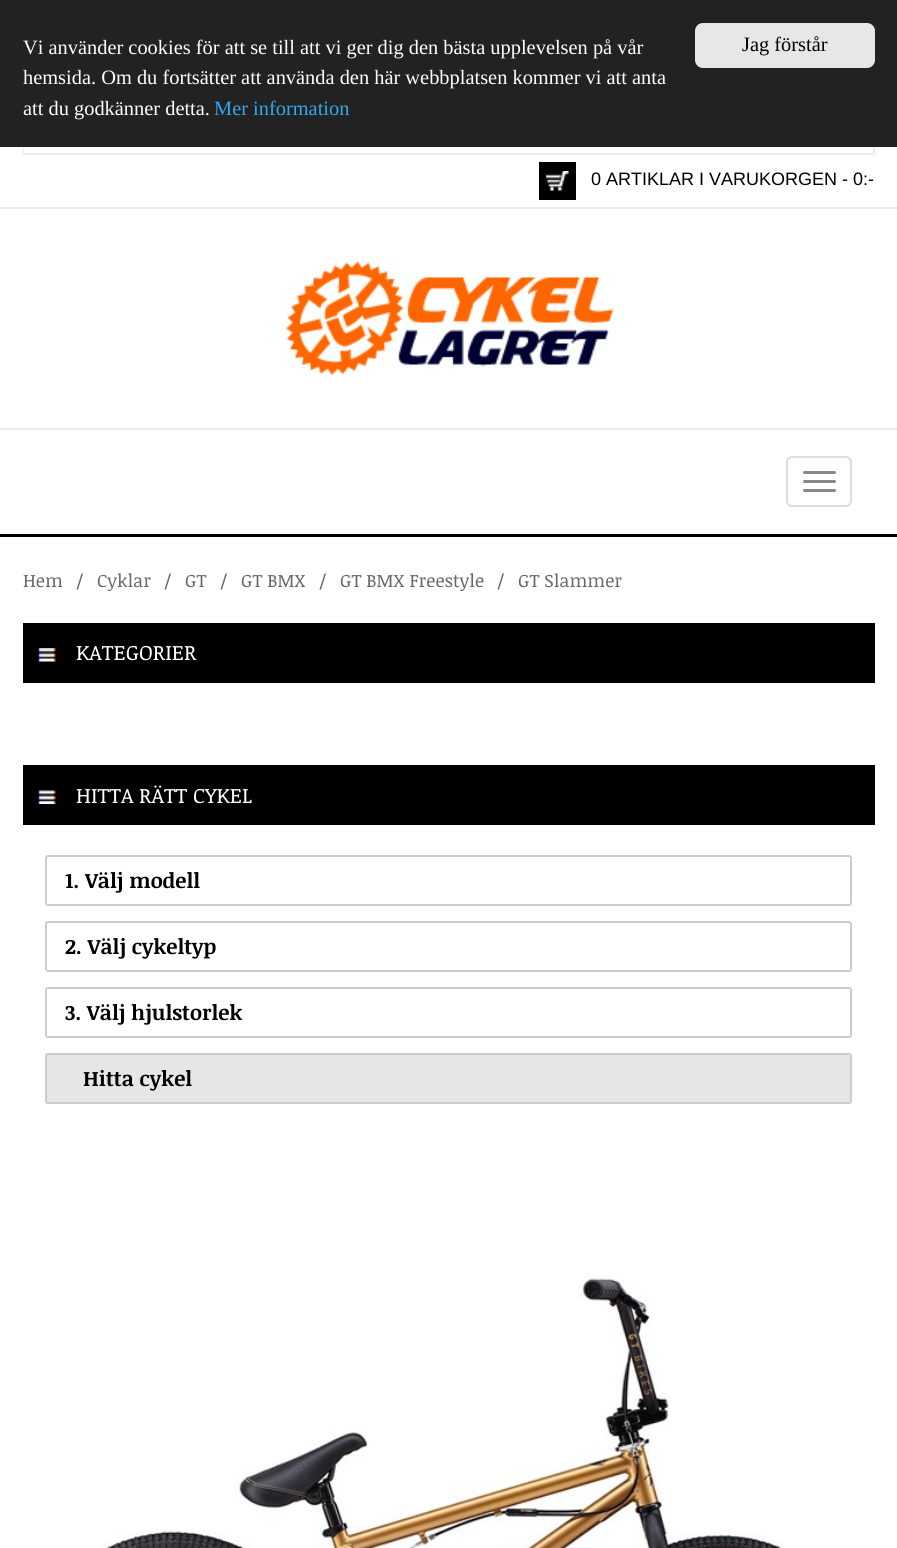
import math
import cairo

surface = cairo.ImageSurface(cairo.FORMAT_RGB24, 897, 1548)
ctx = cairo.Context(surface)
options = cairo.FontOptions()
options.set_hint_metrics(cairo.HINT_METRICS_OFF)
options.set_hint_style(cairo.HINT_STYLE_NONE)
ctx.set_font_options(options)
ctx.set_miter_limit(4)


def round_rect(x, y, w, h, r):
    ctx.new_sub_path()
    for i, (u, v) in enumerate([(x + w - r, y + h - r), (x + r, y + h - r), (x + r, y + r), (x + w - r, y + r)]):
        ctx.arc(u, v, r, i * math.pi / 2, (i + 1) * math.pi / 2)
    ctx.close_path()


def picture(path, x, y, w, h):
    ctx.save()
    ctx.set_source_surface(cairo.ImageSurface.create_from_png(path), x, y)
    ctx.rectangle(x, y, w, h)
    ctx.fill()
    ctx.restore()


ctx.set_source_rgb(1, 1, 1)
ctx.paint()
ctx.rectangle(24, 115, 850, 39)
ctx.set_source_rgb(0.929, 0.929, 0.929)
ctx.stroke()
ctx.set_source_rgb(0.133, 0.133, 0.133)
ctx.rectangle(0, 0, 897, 147)
ctx.fill()
ctx.select_font_face("Liberation Serif")
ctx.set_font_size(20.4)
ctx.set_source_rgb(1, 1, 1)
ctx.move_to(23, 54)
ctx.show_text("Vi använder cookies för att se till att vi ger dig den bästa upplevelsen på vår")
ctx.move_to(23, 84)
ctx.show_text("hemsida. Om du fortsätter att använda den här webbplatsen kommer vi att anta")
ctx.move_to(23, 115)
ctx.show_text("att du godkänner detta.")
ctx.set_source_rgb(0.192, 0.659, 0.941)
ctx.move_to(214, 115)
ctx.show_text("Mer information")
ctx.set_source_rgb(0.906, 0.906, 0.906)
round_rect(695, 23, 180, 45, 8)
ctx.fill()
ctx.set_source_rgb(0, 0, 0)
ctx.move_to(742, 51)
ctx.show_text("Jag förstår")
ctx.set_source_rgb(0.929, 0.929, 0.929)
ctx.rectangle(0, 207, 897, 2)
ctx.fill()
ctx.set_source_rgb(1, 1, 1)
ctx.rectangle(24, 147, 1, 6)
ctx.fill()
ctx.set_source_rgb(0, 0, 0)
ctx.rectangle(539, 162, 37, 38)
ctx.fill()
picture("img1.png", 546, 171, 23, 20)
ctx.select_font_face("Liberation Sans")
ctx.set_font_size(18)
ctx.move_to(591, 185)
ctx.show_text("0 ARTIKLAR I VARUKORGEN - 0:-")
ctx.set_source_rgb(0.929, 0.929, 0.929)
ctx.rectangle(0, 428, 897, 2)
ctx.fill()
picture("img2.png", 286, 261, 328, 114)
ctx.set_source_rgb(0, 0, 0)
ctx.rectangle(0, 534, 897, 3)
ctx.fill()
round_rect(787, 457, 64, 49, 5)
ctx.set_source_rgb(0.867, 0.867, 0.867)
ctx.stroke()
ctx.set_source_rgb(0.533, 0.533, 0.533)
round_rect(803, 471, 33, 3, 1.5)
ctx.fill()
round_rect(803, 480, 33, 3, 1.5)
ctx.fill()
round_rect(803, 489, 33, 3, 1.5)
ctx.fill()
ctx.select_font_face("Noticia Text")
ctx.set_source_rgb(0.4, 0.4, 0.4)
ctx.move_to(23, 587)
ctx.show_text("Hem")
ctx.move_to(76, 587)
ctx.show_text("/")
ctx.move_to(97, 587)
ctx.show_text("Cyklar")
ctx.move_to(164, 587)
ctx.show_text("/")
ctx.move_to(185, 587)
ctx.show_text("GT")
ctx.move_to(220, 587)
ctx.show_text("/")
ctx.move_to(241, 587)
ctx.show_text("GT BMX")
ctx.move_to(319, 587)
ctx.show_text("/")
ctx.move_to(340, 587)
ctx.show_text("GT BMX Freestyle")
ctx.move_to(497, 587)
ctx.show_text("/")
ctx.move_to(518, 587)
ctx.show_text("GT Slammer")
ctx.set_source_rgb(0, 0, 0)
ctx.rectangle(23, 623, 852, 60)
ctx.fill()
picture("img3.png", 37, 648, 19, 14)
ctx.set_font_size(21)
ctx.set_source_rgb(1, 1, 1)
ctx.move_to(76, 660)
ctx.show_text("KATEGORIER")
ctx.set_source_rgb(0, 0, 0)
ctx.rectangle(23, 765, 852, 60)
ctx.fill()
picture("img4.png", 37, 790, 19, 14)
ctx.set_source_rgb(1, 1, 1)
ctx.move_to(76, 803)
ctx.show_text("HITTA RÄTT CYKEL")
round_rect(46, 856, 805, 49, 2)
ctx.set_source_rgb(0.8, 0.8, 0.8)
ctx.stroke()
ctx.select_font_face("Noticia Text", cairo.FONT_SLANT_NORMAL, cairo.FONT_WEIGHT_BOLD)
ctx.set_source_rgb(0, 0, 0)
ctx.move_to(65, 888)
ctx.show_text("1. Välj modell")
round_rect(46, 922, 805, 49, 2)
ctx.set_source_rgb(0.8, 0.8, 0.8)
ctx.stroke()
ctx.set_source_rgb(0, 0, 0)
ctx.move_to(65, 954)
ctx.show_text("2. Välj cykeltyp")
round_rect(46, 988, 805, 49, 2)
ctx.set_source_rgb(0.8, 0.8, 0.8)
ctx.stroke()
ctx.set_source_rgb(0, 0, 0)
ctx.move_to(65, 1020)
ctx.show_text("3. Välj hjulstorlek")
ctx.set_source_rgb(0.902, 0.902, 0.902)
round_rect(46, 1054, 805, 49, 2)
ctx.fill_preserve()
ctx.set_source_rgb(0.8, 0.8, 0.8)
ctx.stroke()
ctx.set_source_rgb(0, 0, 0)
ctx.move_to(83, 1086)
ctx.show_text("Hitta cykel")
picture("img5.png", 102, 1273, 682, 275)
surface.write_to_png("page.png")
